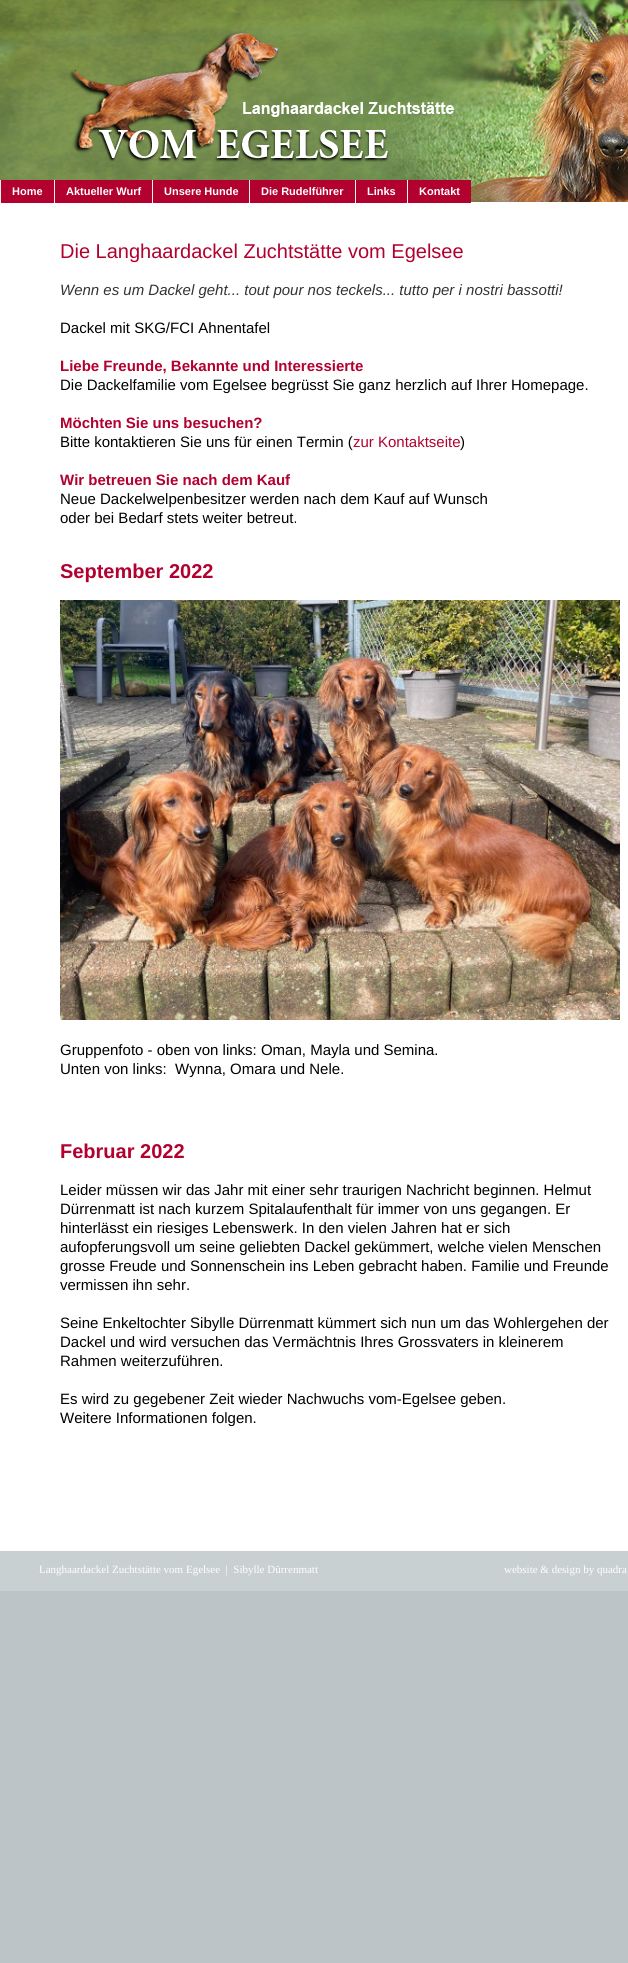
import math
import cairo

surface = cairo.ImageSurface(cairo.FORMAT_RGB24, 628, 1963)
ctx = cairo.Context(surface)
options = cairo.FontOptions()
options.set_hint_metrics(cairo.HINT_METRICS_OFF)
options.set_hint_style(cairo.HINT_STYLE_NONE)
ctx.set_font_options(options)
ctx.set_miter_limit(4)


def picture(path, x, y, w, h):
    ctx.save()
    ctx.set_source_surface(cairo.ImageSurface.create_from_png(path), x, y)
    ctx.rectangle(x, y, w, h)
    ctx.fill()
    ctx.restore()


ctx.set_source_rgb(0.737, 0.769, 0.78)
ctx.paint()
ctx.set_source_rgb(1, 1, 1)
ctx.rectangle(0, 202, 628, 1349)
ctx.fill()
picture("img1.png", 0, 0, 628, 202)
ctx.set_source_rgb(0.698, 0, 0.184)
ctx.rectangle(1, 180, 53, 23)
ctx.fill()
ctx.set_source_rgb(0.953, 0.949, 0.937)
ctx.rectangle(0, 180, 1, 23)
ctx.fill()
ctx.select_font_face("Liberation Sans", cairo.FONT_SLANT_NORMAL, cairo.FONT_WEIGHT_BOLD)
ctx.set_font_size(11)
ctx.set_source_rgb(1, 1, 1)
ctx.move_to(12, 195)
ctx.show_text("Home")
ctx.set_source_rgb(0.698, 0, 0.184)
ctx.rectangle(55, 180, 97, 23)
ctx.fill()
ctx.set_source_rgb(0.953, 0.949, 0.937)
ctx.rectangle(54, 180, 1, 23)
ctx.fill()
ctx.set_source_rgb(1, 1, 1)
ctx.move_to(66, 195)
ctx.show_text("Aktueller Wurf")
ctx.set_source_rgb(0.698, 0, 0.184)
ctx.rectangle(153, 180, 96, 23)
ctx.fill()
ctx.set_source_rgb(0.953, 0.949, 0.937)
ctx.rectangle(152, 180, 1, 23)
ctx.fill()
ctx.set_source_rgb(1, 1, 1)
ctx.move_to(164, 195)
ctx.show_text("Unsere Hunde")
ctx.set_source_rgb(0.698, 0, 0.184)
ctx.rectangle(250, 180, 105, 23)
ctx.fill()
ctx.set_source_rgb(0.953, 0.949, 0.937)
ctx.rectangle(249, 180, 1, 23)
ctx.fill()
ctx.set_source_rgb(1, 1, 1)
ctx.move_to(261, 195)
ctx.show_text("Die Rudelführer")
ctx.set_source_rgb(0.698, 0, 0.184)
ctx.rectangle(356, 180, 51, 23)
ctx.fill()
ctx.set_source_rgb(0.953, 0.949, 0.937)
ctx.rectangle(355, 180, 1, 23)
ctx.fill()
ctx.set_source_rgb(1, 1, 1)
ctx.move_to(367, 195)
ctx.show_text("Links")
ctx.set_source_rgb(0.698, 0, 0.184)
ctx.rectangle(408, 180, 63, 23)
ctx.fill()
ctx.set_source_rgb(0.953, 0.949, 0.937)
ctx.rectangle(407, 180, 1, 23)
ctx.fill()
ctx.set_source_rgb(1, 1, 1)
ctx.move_to(419, 195)
ctx.show_text("Kontakt")
ctx.select_font_face("Liberation Sans")
ctx.set_font_size(20)
ctx.set_source_rgb(0.698, 0, 0.184)
ctx.move_to(60, 258)
ctx.show_text("Die Langhaardackel Zuchtstätte vom Egelsee")
ctx.select_font_face("Liberation Sans", cairo.FONT_SLANT_ITALIC)
ctx.set_font_size(15)
ctx.set_source_rgb(0.2, 0.2, 0.2)
ctx.move_to(60, 295)
ctx.show_text("Wenn es um Dackel geht... tout pour nos teckels... tutto per i nostri bassotti!")
ctx.select_font_face("Liberation Sans")
ctx.set_source_rgb(0, 0, 0)
ctx.move_to(60, 333)
ctx.show_text("Dackel mit SKG/FCI Ahnentafel")
ctx.select_font_face("Liberation Sans", cairo.FONT_SLANT_NORMAL, cairo.FONT_WEIGHT_BOLD)
ctx.set_source_rgb(0.698, 0, 0.184)
ctx.move_to(60, 371)
ctx.show_text("Liebe Freunde, Bekannte und Interessierte")
ctx.select_font_face("Liberation Sans")
ctx.set_source_rgb(0, 0, 0)
ctx.move_to(60, 390)
ctx.show_text("Die Dackelfamilie vom Egelsee begrüsst Sie ganz herzlich auf Ihrer Homepage.")
ctx.select_font_face("Liberation Sans", cairo.FONT_SLANT_NORMAL, cairo.FONT_WEIGHT_BOLD)
ctx.set_source_rgb(0.698, 0, 0.184)
ctx.move_to(60, 428)
ctx.show_text("Möchten Sie uns besuchen?")
ctx.select_font_face("Liberation Sans")
ctx.set_source_rgb(0, 0, 0)
ctx.move_to(60, 447)
ctx.show_text("Bitte kontaktieren Sie uns für einen Termin (")
ctx.set_source_rgb(0.698, 0, 0.184)
ctx.move_to(353, 447)
ctx.show_text("zur Kontaktseite")
ctx.set_source_rgb(0, 0, 0)
ctx.move_to(460, 447)
ctx.show_text(")")
ctx.select_font_face("Liberation Sans", cairo.FONT_SLANT_NORMAL, cairo.FONT_WEIGHT_BOLD)
ctx.set_source_rgb(0.698, 0, 0.184)
ctx.move_to(60, 485)
ctx.show_text("Wir betreuen Sie nach dem Kauf")
ctx.select_font_face("Liberation Sans")
ctx.set_source_rgb(0, 0, 0)
ctx.move_to(60, 504)
ctx.show_text("Neue Dackelwelpenbesitzer werden nach dem Kauf auf Wunsch")
ctx.move_to(60, 523)
ctx.show_text("oder bei Bedarf stets weiter betreut.")
ctx.select_font_face("Liberation Sans", cairo.FONT_SLANT_NORMAL, cairo.FONT_WEIGHT_BOLD)
ctx.set_font_size(20)
ctx.set_source_rgb(0.698, 0, 0.184)
ctx.move_to(60, 578)
ctx.show_text("September 2022")
picture("img2.png", 60, 600, 560, 420)
ctx.select_font_face("Liberation Sans")
ctx.set_font_size(15)
ctx.set_source_rgb(0, 0, 0)
ctx.move_to(60, 1055)
ctx.show_text("Gruppenfoto - oben von links: Oman, Mayla und Semina.")
ctx.move_to(60, 1074)
ctx.show_text("Unten von links:  Wynna, Omara und Nele.")
ctx.select_font_face("Liberation Sans", cairo.FONT_SLANT_NORMAL, cairo.FONT_WEIGHT_BOLD)
ctx.set_font_size(20)
ctx.set_source_rgb(0.698, 0, 0.184)
ctx.move_to(60, 1158)
ctx.show_text("Februar 2022")
ctx.select_font_face("Liberation Sans")
ctx.set_font_size(15)
ctx.set_source_rgb(0, 0, 0)
ctx.move_to(60, 1195)
ctx.show_text("Leider müssen wir das Jahr mit einer sehr traurigen Nachricht beginnen. Helmut")
ctx.move_to(60, 1214)
ctx.show_text("Dürrenmatt ist nach kurzem Spitalaufenthalt für immer von uns gegangen. Er")
ctx.move_to(60, 1233)
ctx.show_text("hinterlässt ein riesiges Lebenswerk. In den vielen Jahren hat er sich")
ctx.move_to(60, 1252)
ctx.show_text("aufopferungsvoll um seine geliebten Dackel gekümmert, welche vielen Menschen")
ctx.move_to(60, 1271)
ctx.show_text("grosse Freude und Sonnenschein ins Leben gebracht haben. Familie und Freunde")
ctx.move_to(60, 1290)
ctx.show_text("vermissen ihn sehr.")
ctx.move_to(60, 1328)
ctx.show_text("Seine Enkeltochter Sibylle Dürrenmatt kümmert sich nun um das Wohlergehen der")
ctx.move_to(60, 1347)
ctx.show_text("Dackel und wird versuchen das Vermächtnis Ihres Grossvaters in kleinerem")
ctx.move_to(60, 1366)
ctx.show_text("Rahmen weiterzuführen.")
ctx.move_to(60, 1404)
ctx.show_text("Es wird zu gegebener Zeit wieder Nachwuchs vom-Egelsee geben.")
ctx.move_to(60, 1423)
ctx.show_text("Weitere Informationen folgen.")
ctx.set_source_rgb(0.788, 0.816, 0.824)
ctx.rectangle(0, 1551, 628, 40)
ctx.fill()
ctx.select_font_face("Liberation Serif")
ctx.set_font_size(11)
ctx.set_source_rgb(1, 1, 1)
ctx.move_to(39, 1573)
ctx.show_text("Langhaardackel Zuchtstätte vom Egelsee  |  Sibylle Dürrenmatt")
ctx.move_to(504, 1573)
ctx.show_text("website & design by quadra")
surface.write_to_png("page.png")
